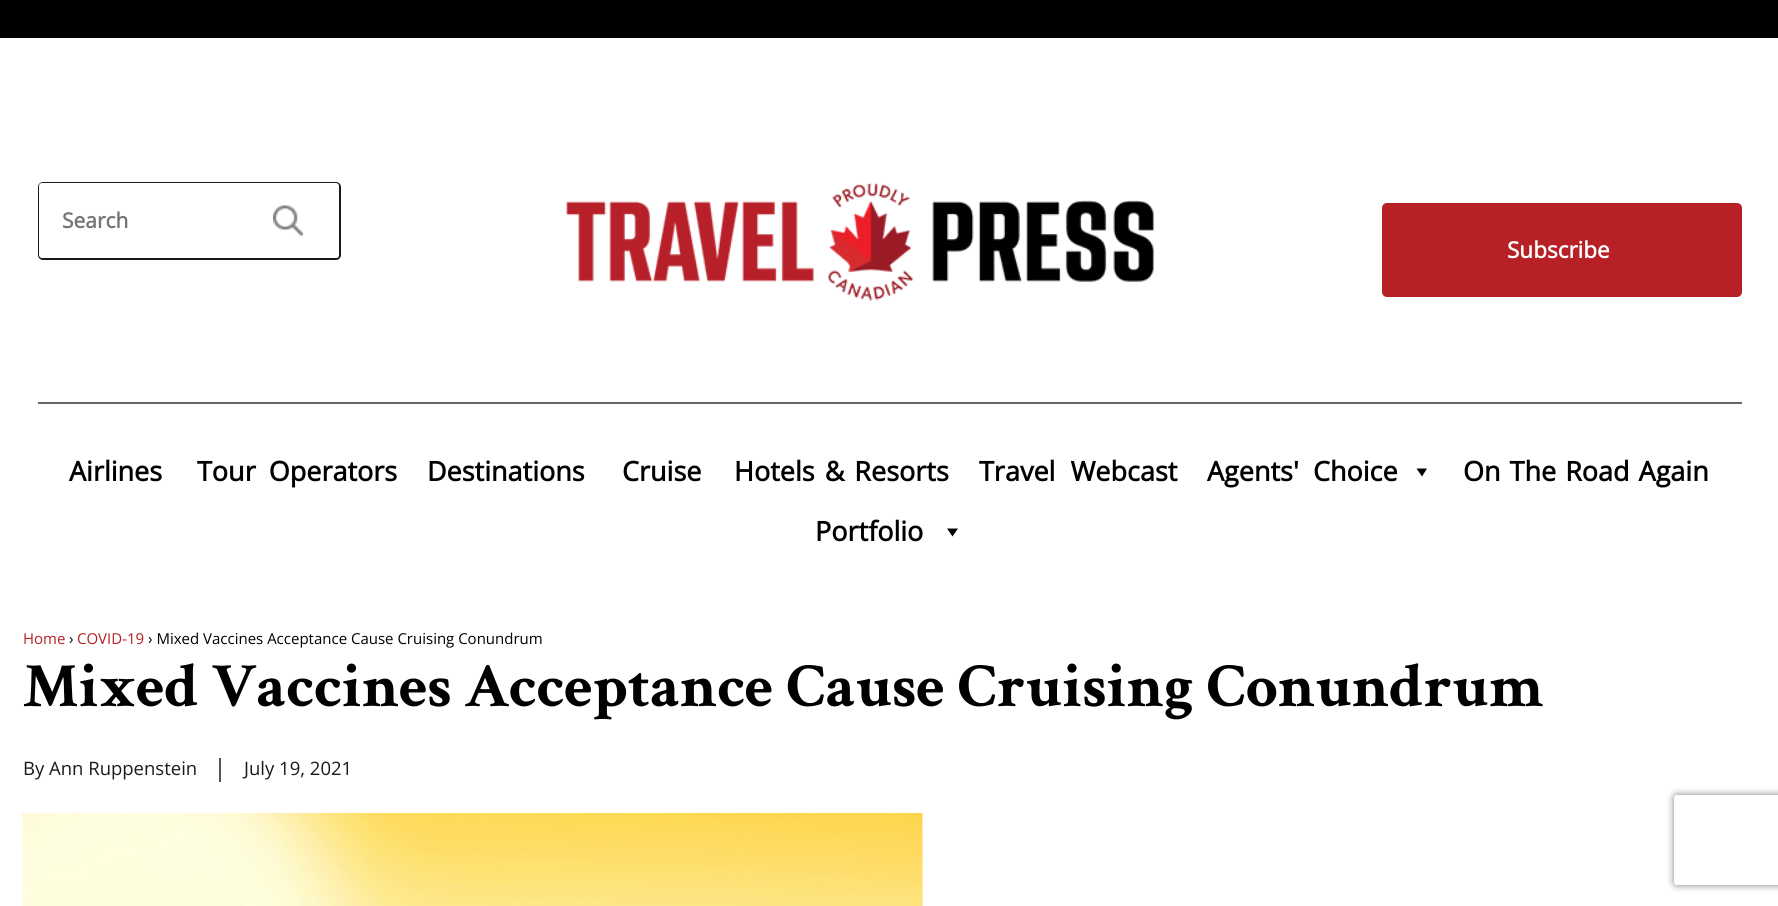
import math
import cairo

surface = cairo.ImageSurface(cairo.FORMAT_RGB24, 1778, 906)
ctx = cairo.Context(surface)
options = cairo.FontOptions()
options.set_hint_metrics(cairo.HINT_METRICS_OFF)
options.set_hint_style(cairo.HINT_STYLE_NONE)
ctx.set_font_options(options)
ctx.set_miter_limit(4)


def spaced_text(x, y, s, letter, word):
    ctx.move_to(x, y)
    for ch in s:
        ctx.show_text(ch)
        ctx.rel_move_to(letter + word * (ch == ' '), 0)


def round_rect(x, y, w, h, r):
    ctx.new_sub_path()
    for i, (u, v) in enumerate([(x + w - r, y + h - r), (x + r, y + h - r), (x + r, y + r), (x + w - r, y + r)]):
        ctx.arc(u, v, r, i * math.pi / 2, (i + 1) * math.pi / 2)
    ctx.close_path()


def shadow(x, y, w, h, r, blur, alpha):
    ctx.push_group_with_content(cairo.CONTENT_ALPHA)
    ctx.set_operator(cairo.OPERATOR_SOURCE)
    for i in range(15, -16, -2):
        e = blur * i / 6
        if min(w, h) + 2 * e > 0:
            ctx.set_source_rgba(0, 0, 0, alpha * math.erfc((i - 1) / 8.5) / 2)
            round_rect(x - e, y - e, w + 2 * e, h + 2 * e, max(0, min(r + e + blur * .6, min(w, h) / 2 + e)))
            ctx.fill()
    ctx.mask(ctx.pop_group())


def picture(path, x, y, w, h):
    ctx.save()
    ctx.set_source_surface(cairo.ImageSurface.create_from_png(path), x, y)
    ctx.rectangle(x, y, w, h)
    ctx.fill()
    ctx.restore()


ctx.set_source_rgb(1, 1, 1)
ctx.paint()
ctx.set_source_rgb(0, 0, 0)
ctx.rectangle(0, 0, 1778, 38)
ctx.fill()
round_rect(39, 183, 301, 76, 4)
ctx.set_source_rgb(0.102, 0.102, 0.102)
ctx.stroke()
ctx.set_source_rgb(1, 1, 1)
round_rect(39, 183, 300, 75, 3)
ctx.fill()
ctx.select_font_face("Open Sans", cairo.FONT_SLANT_NORMAL, cairo.FONT_WEIGHT_BOLD)
ctx.set_font_size(21)
ctx.set_source_rgb(0.459, 0.459, 0.459)
ctx.move_to(62, 228)
ctx.show_text("Search")
picture("img1.png", 273, 205, 30, 31)
picture("img2.png", 566, 183, 588, 118)
ctx.set_source_rgb(0.718, 0.125, 0.145)
round_rect(1382, 203, 360, 94, 5)
ctx.fill()
ctx.set_font_size(22.5)
ctx.set_source_rgb(1, 1, 1)
ctx.move_to(1507, 258)
ctx.show_text("Subscribe")
ctx.set_source_rgb(0.4, 0.4, 0.4)
ctx.rectangle(38, 402, 1704, 2)
ctx.fill()
ctx.set_font_size(27)
ctx.set_source_rgb(0, 0, 0)
ctx.move_to(69, 481)
ctx.show_text("Airlines")
spaced_text(197, 481, "Tour Operators", 0, 6)
ctx.move_to(427, 481)
ctx.show_text("Destinations")
ctx.move_to(622, 481)
ctx.show_text("Cruise")
spaced_text(734, 481, "Hotels & Resorts", 0, 3)
spaced_text(979, 481, "Travel Webcast", 0, 8)
spaced_text(1207, 481, "Agents' Choice", 0, 7)
ctx.new_path()
ctx.move_to(1427, 468.5)
ctx.line_to(1422, 476.5)
ctx.line_to(1416.5, 468.5)
ctx.close_path()
ctx.fill()
spaced_text(1463, 481, "On The Road Again", 0, 2)
ctx.move_to(815, 541)
ctx.show_text("Portfolio")
ctx.new_path()
ctx.move_to(958, 528.5)
ctx.line_to(952.5, 536.5)
ctx.line_to(947, 528.5)
ctx.close_path()
ctx.fill()
ctx.select_font_face("Open Sans")
ctx.set_font_size(15)
ctx.set_source_rgb(0.718, 0.125, 0.145)
ctx.move_to(23, 644)
ctx.show_text("Home")
ctx.set_source_rgb(0, 0, 0)
ctx.move_to(69, 644)
ctx.show_text("›")
ctx.set_source_rgb(0.718, 0.125, 0.145)
ctx.move_to(77, 644)
ctx.show_text("COVID-19")
ctx.set_source_rgb(0, 0, 0)
ctx.move_to(148, 644)
ctx.show_text("› Mixed Vaccines Acceptance Cause Cruising Conundrum")
ctx.select_font_face("Crimson Text", cairo.FONT_SLANT_NORMAL, cairo.FONT_WEIGHT_BOLD)
ctx.set_font_size(63)
ctx.move_to(23, 706)
ctx.show_text("Mixed Vaccines Acceptance Cause Cruising Conundrum")
ctx.select_font_face("Open Sans")
ctx.set_font_size(18.5)
ctx.set_source_rgb(0.102, 0.102, 0.102)
ctx.move_to(23, 775)
ctx.show_text("By Ann Ruppenstein")
ctx.set_source_rgb(0.337, 0.329, 0.329)
ctx.rectangle(219, 758, 2, 24)
ctx.fill()
ctx.set_source_rgb(0.102, 0.102, 0.102)
ctx.move_to(244, 775)
ctx.show_text("July 19, 2021")
picture("img3.png", 22, 813, 901, 93)
ctx.save()
ctx.set_fill_rule(cairo.FILL_RULE_EVEN_ODD)
ctx.new_path()
ctx.move_to(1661, 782)
ctx.line_to(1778, 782)
ctx.line_to(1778, 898)
ctx.line_to(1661, 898)
ctx.close_path()
ctx.move_to(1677, 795)
ctx.line_to(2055, 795)
ctx.curve_to(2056.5, 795, 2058, 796.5, 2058, 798)
ctx.line_to(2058, 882)
ctx.curve_to(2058, 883.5, 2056.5, 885, 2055, 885)
ctx.line_to(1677, 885)
ctx.curve_to(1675.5, 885, 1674, 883.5, 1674, 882)
ctx.line_to(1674, 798)
ctx.curve_to(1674, 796.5, 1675.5, 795, 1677, 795)
ctx.close_path()
ctx.clip()
ctx.set_source_rgb(0.502, 0.502, 0.502)
shadow(1674, 795, 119, 90, 3, 4, 1)
ctx.restore()
surface.write_to_png("page.png")
